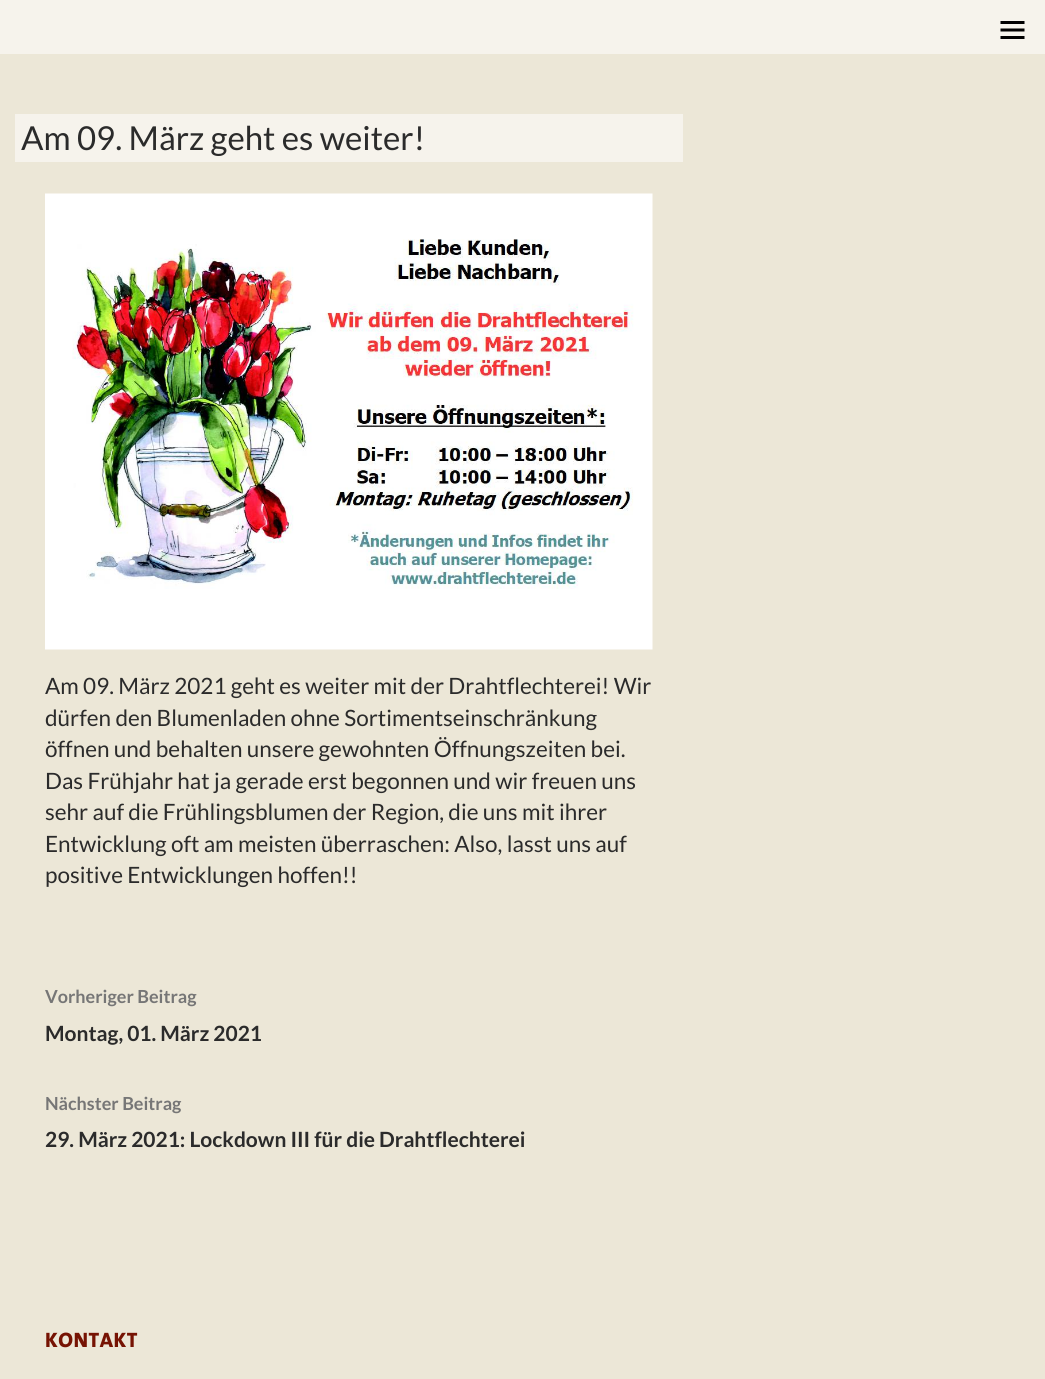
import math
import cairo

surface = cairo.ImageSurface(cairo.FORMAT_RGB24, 1045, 1379)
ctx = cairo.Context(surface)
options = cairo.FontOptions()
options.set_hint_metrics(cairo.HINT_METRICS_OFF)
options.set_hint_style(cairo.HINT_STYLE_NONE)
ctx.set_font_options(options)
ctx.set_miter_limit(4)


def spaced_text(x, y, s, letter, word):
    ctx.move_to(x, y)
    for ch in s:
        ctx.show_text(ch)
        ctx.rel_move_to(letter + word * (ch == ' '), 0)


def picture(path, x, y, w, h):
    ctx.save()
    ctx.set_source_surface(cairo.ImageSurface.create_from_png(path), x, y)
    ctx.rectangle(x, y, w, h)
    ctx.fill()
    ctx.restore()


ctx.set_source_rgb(0.922, 0.906, 0.843)
ctx.paint()
ctx.set_source_rgb(0.961, 0.953, 0.922)
ctx.rectangle(0, 0, 1045, 54)
ctx.fill()
picture("img1.png", 1000, 21, 25, 18)
ctx.rectangle(15, 114, 668, 48)
ctx.fill()
ctx.select_font_face("Lato")
ctx.set_font_size(33)
ctx.set_source_rgb(0.169, 0.169, 0.169)
ctx.move_to(21, 150)
ctx.show_text("Am 09. März geht es weiter!")
picture("img2.png", 45, 193, 608, 457)
ctx.set_font_size(22.5)
ctx.move_to(45, 694)
ctx.show_text("Am 09. März 2021 geht es weiter mit der Drahtflechterei! Wir")
ctx.move_to(45, 726)
ctx.show_text("dürfen den Blumenladen ohne Sortimentseinschränkung")
ctx.move_to(45, 757)
ctx.show_text("öffnen und behalten unsere gewohnten Öffnungszeiten bei.")
ctx.move_to(45, 789)
ctx.show_text("Das Frühjahr hat ja gerade erst begonnen und wir freuen uns")
ctx.move_to(45, 820)
ctx.show_text("sehr auf die Frühlingsblumen der Region, die uns mit ihrer")
ctx.move_to(45, 852)
ctx.show_text("Entwicklung oft am meisten überraschen: Also, lasst uns auf")
ctx.move_to(45, 883)
ctx.show_text("positive Entwicklungen hoffen!!")
ctx.select_font_face("Lato", cairo.FONT_SLANT_NORMAL, cairo.FONT_WEIGHT_BOLD)
ctx.set_font_size(18)
ctx.set_source_rgb(0.463, 0.463, 0.463)
ctx.move_to(45, 1003)
ctx.show_text("Vorheriger Beitrag")
ctx.set_font_size(21)
ctx.set_source_rgb(0.169, 0.169, 0.169)
ctx.move_to(45, 1041)
ctx.show_text("Montag, 01. März 2021")
ctx.set_font_size(18)
ctx.set_source_rgb(0.463, 0.463, 0.463)
ctx.move_to(45, 1110)
ctx.show_text("Nächster Beitrag")
ctx.set_font_size(21)
ctx.set_source_rgb(0.169, 0.169, 0.169)
ctx.move_to(45, 1147)
ctx.show_text("29. März 2021: Lockdown III für die Drahtflechterei")
ctx.select_font_face("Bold")
ctx.set_source_rgb(0.463, 0.075, 0.012)
spaced_text(45, 1347, "KONTAKT", 0.5, 0)
surface.write_to_png("page.png")
